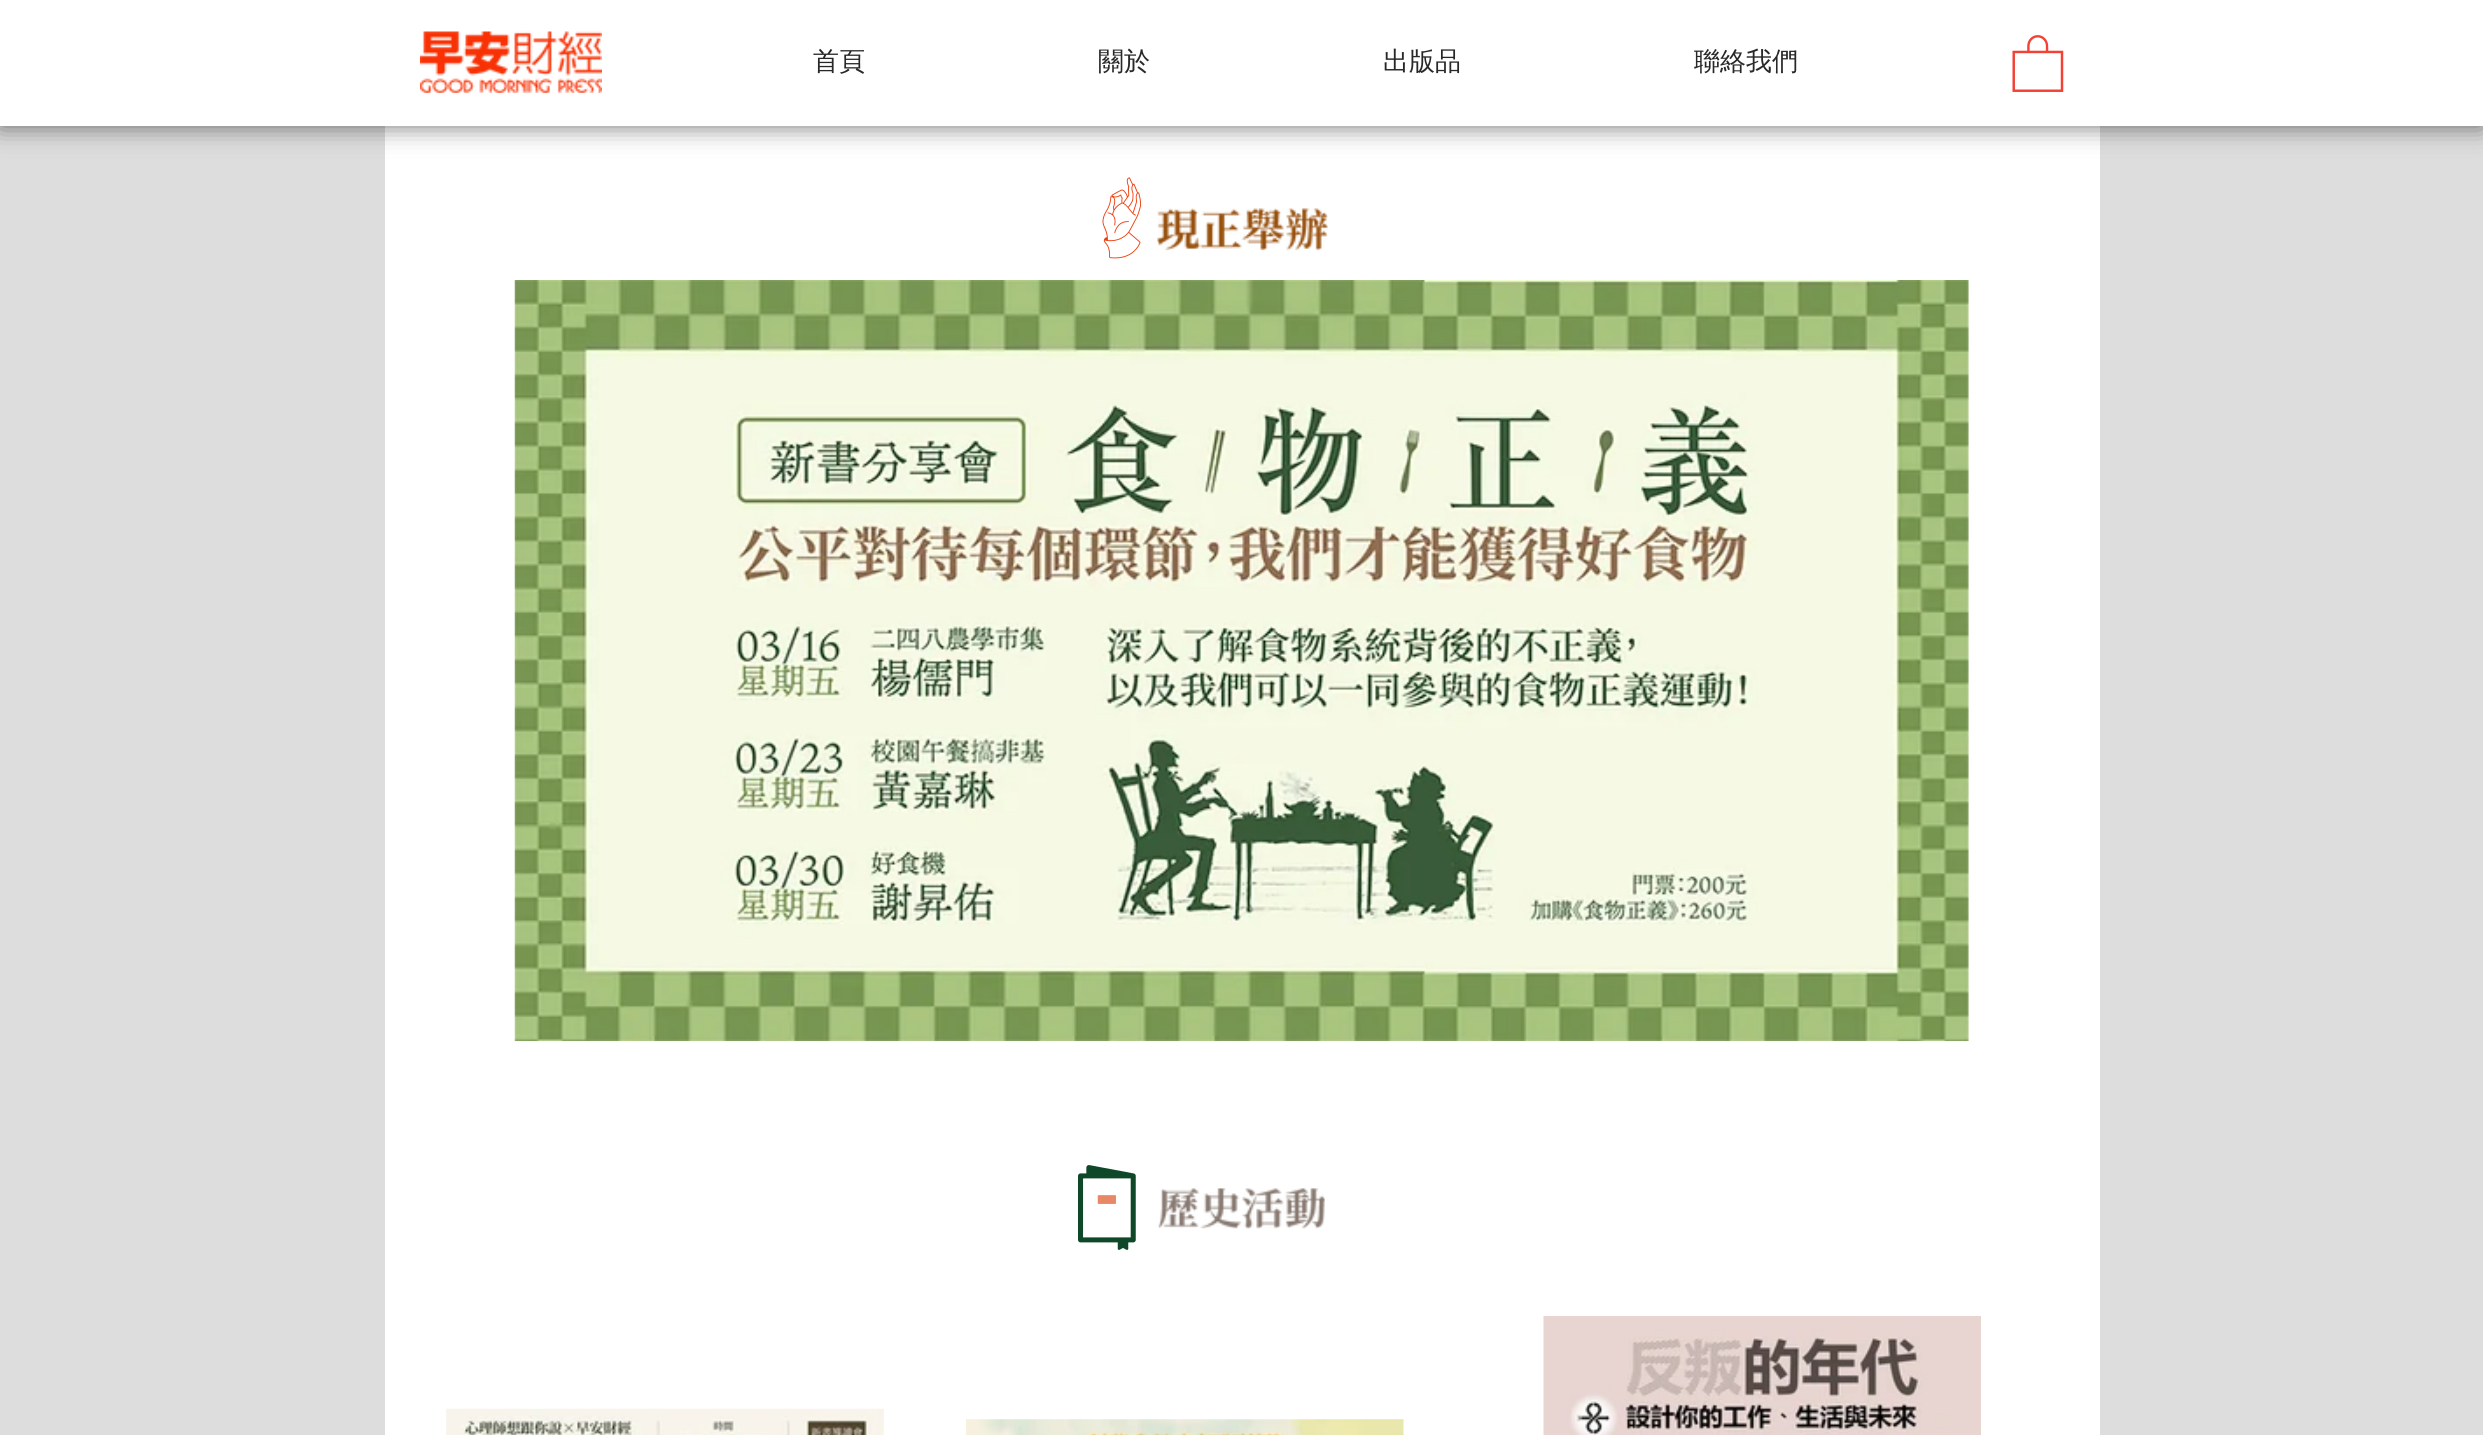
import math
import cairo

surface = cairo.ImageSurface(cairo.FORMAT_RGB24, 2483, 1435)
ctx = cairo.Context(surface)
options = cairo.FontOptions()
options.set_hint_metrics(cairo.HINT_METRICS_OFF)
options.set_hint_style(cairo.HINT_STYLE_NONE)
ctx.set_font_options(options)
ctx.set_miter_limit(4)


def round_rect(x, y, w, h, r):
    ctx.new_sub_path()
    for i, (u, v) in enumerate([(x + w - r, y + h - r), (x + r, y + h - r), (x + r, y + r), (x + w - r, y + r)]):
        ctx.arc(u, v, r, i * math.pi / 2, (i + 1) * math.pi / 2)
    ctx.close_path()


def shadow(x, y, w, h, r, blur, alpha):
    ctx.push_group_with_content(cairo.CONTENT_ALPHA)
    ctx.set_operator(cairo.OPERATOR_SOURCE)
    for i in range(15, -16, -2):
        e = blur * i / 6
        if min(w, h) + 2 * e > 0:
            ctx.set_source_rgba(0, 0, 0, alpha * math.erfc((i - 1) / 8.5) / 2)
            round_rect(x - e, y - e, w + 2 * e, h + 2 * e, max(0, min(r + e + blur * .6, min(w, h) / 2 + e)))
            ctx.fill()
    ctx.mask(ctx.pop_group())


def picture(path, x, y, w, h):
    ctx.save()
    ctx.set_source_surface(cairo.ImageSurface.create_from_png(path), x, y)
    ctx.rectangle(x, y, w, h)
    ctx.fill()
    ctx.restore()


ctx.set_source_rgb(0.867, 0.867, 0.867)
ctx.paint()
ctx.set_source_rgb(1, 1, 1)
ctx.rectangle(385, 126, 1715, 1309)
ctx.fill()
ctx.set_source_rgb(0, 0, 0)
shadow(0, 0, 2483, 126, 0, 13, 0.55)
ctx.set_source_rgb(1, 1, 1)
ctx.rectangle(0, 0, 2483, 126)
ctx.fill()
picture("img1.png", 420, 31, 182, 62)
ctx.select_font_face("WenQuanYi Zen Hei Medium")
ctx.set_font_size(26)
ctx.set_source_rgb(0.161, 0.157, 0.157)
ctx.move_to(813, 70)
ctx.show_text("首頁")
ctx.move_to(1098, 70)
ctx.show_text("關於")
ctx.move_to(1383, 70)
ctx.show_text("出版品")
ctx.move_to(1694, 70)
ctx.show_text("聯絡我們")
picture("img2.png", 2012, 35, 52, 57)
picture("img3.png", 1102, 177, 39, 82)
picture("img4.png", 1157, 208, 171, 43)
picture("img5.png", 514, 280, 1455, 762)
picture("img6.png", 1078, 1165, 58, 85)
picture("img7.png", 1158, 1188, 167, 41)
picture("img8.png", 446, 1408, 438, 27)
picture("img9.png", 966, 1419, 438, 16)
picture("img10.png", 1543, 1316, 438, 119)
surface.write_to_png("page.png")
